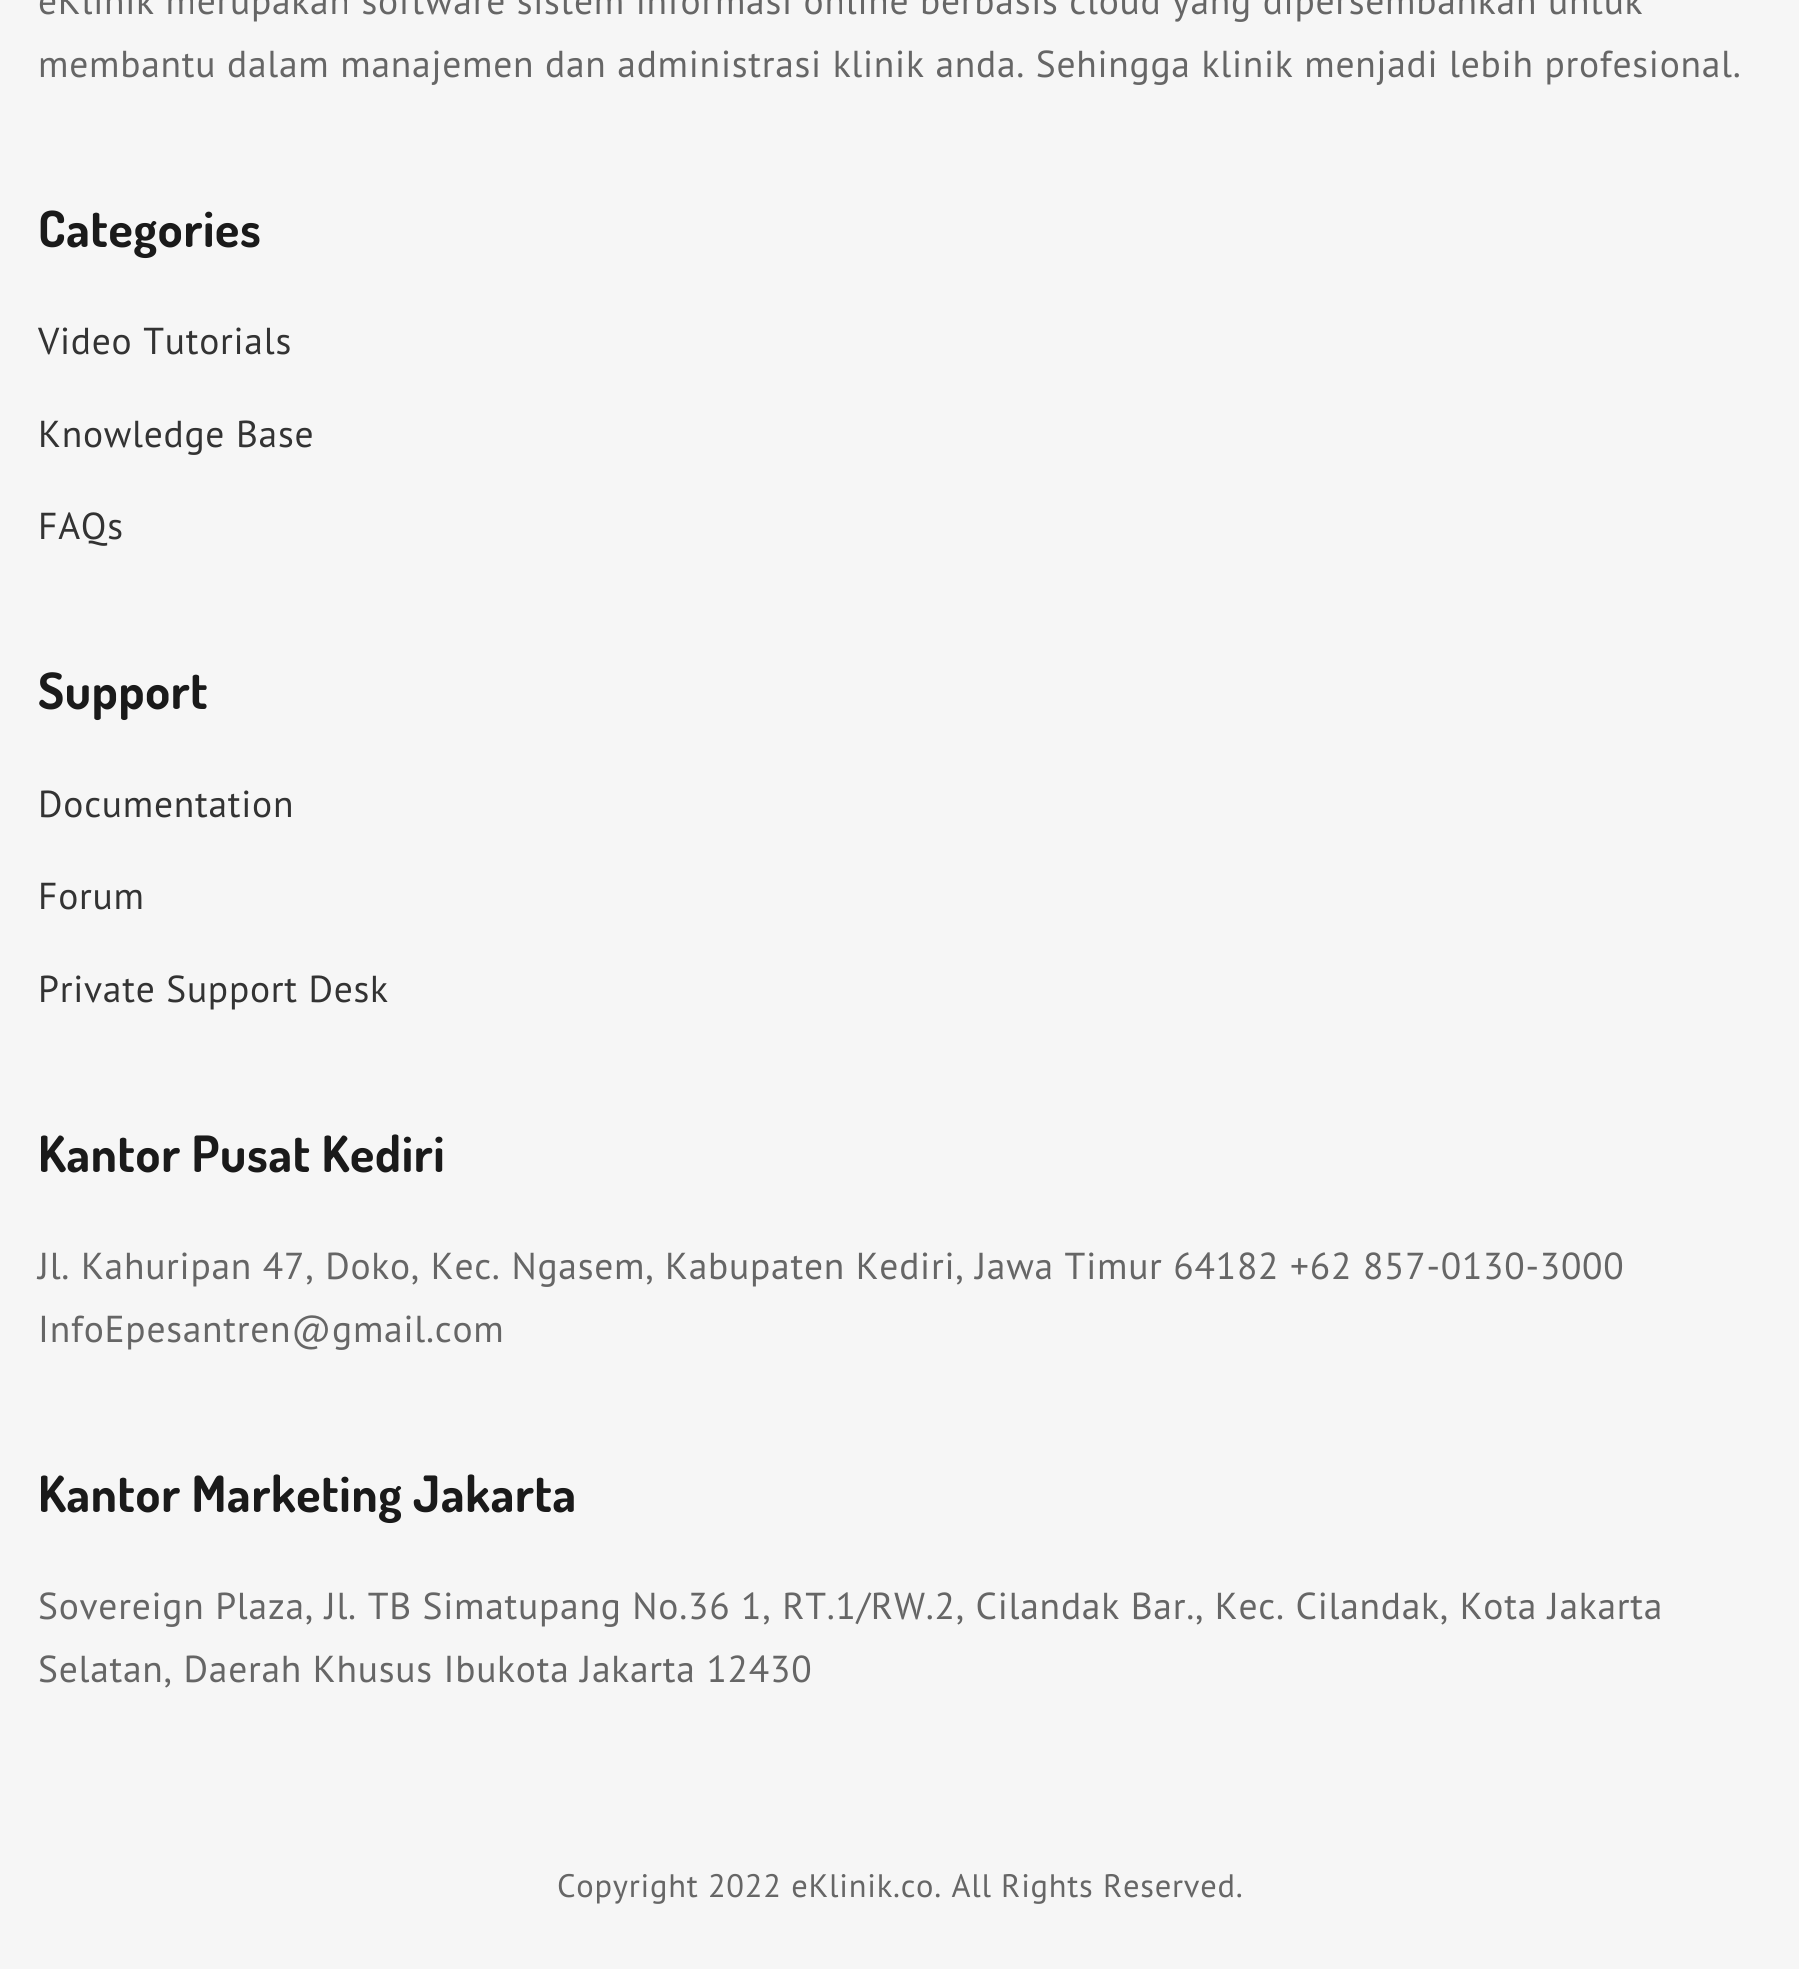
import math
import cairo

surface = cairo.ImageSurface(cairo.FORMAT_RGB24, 1799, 1969)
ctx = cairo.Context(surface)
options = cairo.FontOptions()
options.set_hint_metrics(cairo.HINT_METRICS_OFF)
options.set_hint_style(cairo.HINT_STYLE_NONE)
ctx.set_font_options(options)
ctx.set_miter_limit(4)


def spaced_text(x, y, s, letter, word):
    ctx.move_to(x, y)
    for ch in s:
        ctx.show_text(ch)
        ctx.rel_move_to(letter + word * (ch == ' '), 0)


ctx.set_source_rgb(0.961, 0.961, 0.961)
ctx.paint()
ctx.select_font_face("PT Sans")
ctx.set_font_size(37.5)
ctx.set_source_rgb(0.4, 0.4, 0.4)
spaced_text(38, 14, "eKlinik merupakan software sistem informasi online berbasis cloud yang dipersembahkan untuk", 0.75, 0)
spaced_text(38, 77, "membantu dalam manajemen dan administrasi klinik anda. Sehingga klinik menjadi lebih profesional.", 0.75, 0)
ctx.select_font_face("Dosis", cairo.FONT_SLANT_NORMAL, cairo.FONT_WEIGHT_BOLD)
ctx.set_font_size(50)
ctx.set_source_rgb(0.102, 0.102, 0.102)
spaced_text(38, 247, "Categories", 0.75, 0)
ctx.select_font_face("PT Sans")
ctx.set_font_size(37.5)
ctx.set_source_rgb(0.2, 0.2, 0.2)
spaced_text(38, 354, "Video Tutorials", 0.75, 0)
spaced_text(38, 447, "Knowledge Base", 0.75, 0)
spaced_text(38, 539, "FAQs", 0.75, 0)
ctx.select_font_face("Dosis", cairo.FONT_SLANT_NORMAL, cairo.FONT_WEIGHT_BOLD)
ctx.set_font_size(50)
ctx.set_source_rgb(0.102, 0.102, 0.102)
spaced_text(38, 709, "Support", 0.75, 0)
ctx.select_font_face("PT Sans")
ctx.set_font_size(37.5)
ctx.set_source_rgb(0.2, 0.2, 0.2)
spaced_text(38, 817, "Documentation", 0.75, 0)
spaced_text(38, 909, "Forum", 0.75, 0)
spaced_text(38, 1002, "Private Support Desk", 0.75, 0)
ctx.select_font_face("Dosis", cairo.FONT_SLANT_NORMAL, cairo.FONT_WEIGHT_BOLD)
ctx.set_font_size(50)
ctx.set_source_rgb(0.102, 0.102, 0.102)
spaced_text(38, 1172, "Kantor Pusat Kediri", 0.75, 0)
ctx.select_font_face("PT Sans")
ctx.set_font_size(37.5)
ctx.set_source_rgb(0.4, 0.4, 0.4)
spaced_text(38, 1279, "Jl. Kahuripan 47, Doko, Kec. Ngasem, Kabupaten Kediri, Jawa Timur 64182 +62 857-0130-3000", 0.75, 0)
spaced_text(38, 1342, "InfoEpesantren@gmail.com", 0.75, 0)
ctx.select_font_face("Dosis", cairo.FONT_SLANT_NORMAL, cairo.FONT_WEIGHT_BOLD)
ctx.set_font_size(50)
ctx.set_source_rgb(0.102, 0.102, 0.102)
spaced_text(38, 1512, "Kantor Marketing Jakarta", 0.75, 0)
ctx.select_font_face("PT Sans")
ctx.set_font_size(37.5)
ctx.set_source_rgb(0.4, 0.4, 0.4)
spaced_text(38, 1619, "Sovereign Plaza, Jl. TB Simatupang No.36 1, RT.1/RW.2, Cilandak Bar., Kec. Cilandak, Kota Jakarta", 0.75, 0)
spaced_text(38, 1682, "Selatan, Daerah Khusus Ibukota Jakarta 12430", 0.75, 0)
ctx.set_font_size(32.5)
spaced_text(557, 1897, "Copyright 2022 eKlinik.co. All Rights Reserved.", 0.75, 0)
surface.write_to_png("page.png")
